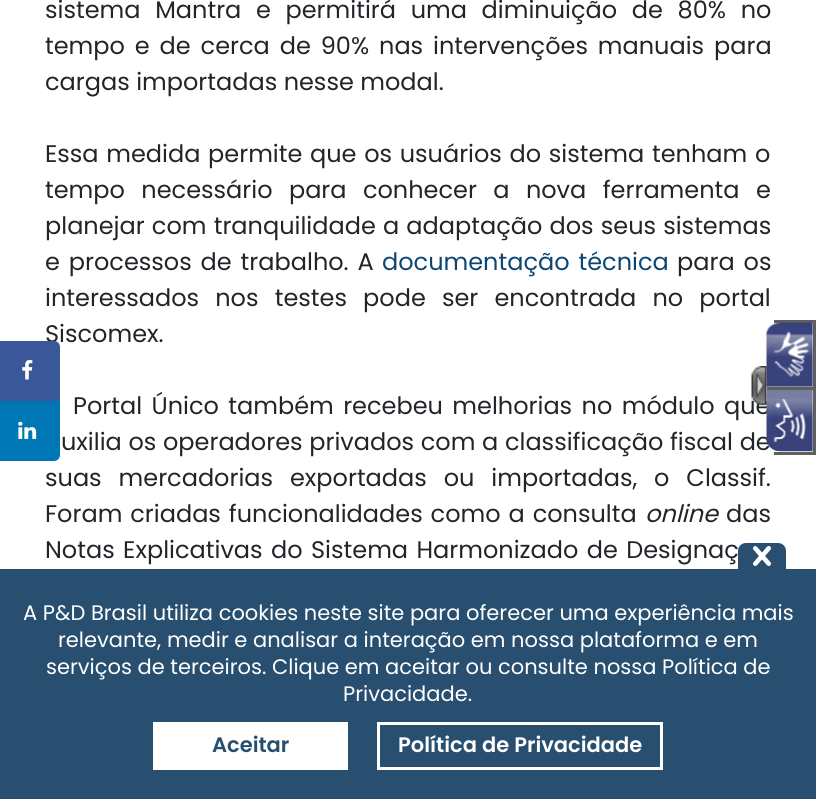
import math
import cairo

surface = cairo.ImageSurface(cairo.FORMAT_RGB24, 816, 799)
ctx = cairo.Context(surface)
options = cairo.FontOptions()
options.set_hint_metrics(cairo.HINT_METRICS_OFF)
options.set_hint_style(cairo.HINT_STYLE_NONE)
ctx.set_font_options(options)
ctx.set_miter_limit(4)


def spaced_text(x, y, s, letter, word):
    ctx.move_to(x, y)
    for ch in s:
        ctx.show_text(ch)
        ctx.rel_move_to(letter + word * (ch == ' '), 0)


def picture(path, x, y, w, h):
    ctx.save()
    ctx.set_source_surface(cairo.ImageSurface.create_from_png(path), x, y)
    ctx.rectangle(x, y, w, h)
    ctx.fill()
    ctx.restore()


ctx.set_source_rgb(1, 1, 1)
ctx.paint()
ctx.select_font_face("Poppins")
ctx.set_font_size(24)
ctx.set_source_rgb(0.129, 0.145, 0.161)
ctx.move_to(45, 342)
ctx.show_text("Siscomex.")
ctx.set_source_rgb(0.227, 0.341, 0.604)
ctx.new_path()
ctx.move_to(1.5, 342.5)
ctx.line_to(54, 342.5)
ctx.curve_to(56.5, 342.5, 58.5, 344.5, 58.5, 347)
ctx.line_to(58.5, 399.5)
ctx.line_to(1.5, 399.5)
ctx.close_path()
ctx.fill_preserve()
ctx.set_line_width(3)
ctx.stroke()
picture("img1.png", 22, 360, 11, 20)
ctx.set_source_rgb(0, 0.467, 0.71)
ctx.new_path()
ctx.move_to(1.5, 402.5)
ctx.line_to(58.5, 402.5)
ctx.line_to(58.5, 455)
ctx.curve_to(58.5, 457.5, 56.5, 459.5, 54, 459.5)
ctx.line_to(1.5, 459.5)
ctx.close_path()
ctx.fill_preserve()
ctx.stroke()
picture("img2.png", 18, 421, 19, 18)
ctx.set_source_rgb(0.129, 0.145, 0.161)
spaced_text(45, 18, "sistema Mantra e permitirá uma diminuição de 80% no", 0, 8.25)
spaced_text(45, 54, "tempo e de cerca de 90% nas intervenções manuais para", 0, 3.5)
ctx.move_to(45, 90)
ctx.show_text("cargas importadas nesse modal.")
spaced_text(45, 162, "Essa medida permite que os usuários do sistema tenham o", 0, 1.25)
spaced_text(45, 198, "tempo necessário para conhecer a nova ferramenta e", 0, 10)
spaced_text(45, 234, "planejar com tranquilidade a adaptação dos seus sistemas", 0, 0.75)
spaced_text(45, 270, "e processos de trabalho. A", 0, 2.5)
ctx.set_source_rgb(0.047, 0.275, 0.447)
spaced_text(382, 270, "documentação técnica", 0, 2.5)
ctx.set_source_rgb(0.129, 0.145, 0.161)
spaced_text(677, 270, "para os", 0, 2.5)
spaced_text(45, 306, "interessados nos testes pode ser encontrada no portal", 0, 9.75)
spaced_text(73, 414, "Portal Único também recebeu melhorias no módulo que", 0, 3)
spaced_text(61, 450, "uxilia os operadores privados com a classificação fiscal de", 0, 0.25)
spaced_text(45, 486, "suas mercadorias exportadas ou importadas, o Classif.", 0, 10.5)
spaced_text(45, 522, "Foram criadas funcionalidades como a consulta", 0, 1.5)
ctx.select_font_face("Poppins", cairo.FONT_SLANT_ITALIC)
ctx.move_to(645, 522)
ctx.show_text("online")
ctx.select_font_face("Poppins")
ctx.move_to(726, 522)
ctx.show_text("das")
spaced_text(45, 558, "Notas Explicativas do Sistema Harmonizado de Designaç", 0, 2)
ctx.set_source_rgb(0.373, 0.373, 0.373)
ctx.rectangle(774, 320, 42, 3)
ctx.fill()
ctx.rectangle(813, 320, 3, 67)
ctx.fill()
picture("img4.png", 766, 322, 48, 66)
picture("img3.png", 751, 366, 16, 40)
ctx.rectangle(767, 387, 49, 3)
ctx.fill()
ctx.rectangle(813, 387, 3, 68)
ctx.fill()
picture("img5.png", 766, 390, 48, 62)
ctx.rectangle(774, 452, 42, 3)
ctx.fill()
ctx.set_source_rgb(0.157, 0.31, 0.439)
ctx.rectangle(0, 569, 816, 230)
ctx.fill()
ctx.new_path()
ctx.move_to(746, 543)
ctx.line_to(778, 543)
ctx.curve_to(782.5, 543, 786, 546.5, 786, 551)
ctx.line_to(786, 569)
ctx.line_to(738, 569)
ctx.line_to(738, 551)
ctx.curve_to(738, 546.5, 741.5, 543, 746, 543)
ctx.close_path()
ctx.fill()
picture("img6.png", 753, 546, 18, 20)
ctx.set_font_size(21)
ctx.set_source_rgb(1, 1, 1)
ctx.move_to(23, 620)
ctx.show_text("A P&D Brasil utiliza cookies neste site para oferecer uma experiência mais")
ctx.move_to(58, 647)
ctx.show_text("relevante, medir e analisar a interação em nossa plataforma e em")
ctx.move_to(46, 674)
ctx.show_text("serviços de terceiros. Clique em aceitar ou consulte nossa Política de")
ctx.move_to(343, 701)
ctx.show_text("Privacidade.")
ctx.rectangle(153, 722, 195, 48)
ctx.fill()
ctx.select_font_face("Poppins SemiBold")
ctx.set_source_rgb(0.157, 0.31, 0.439)
ctx.move_to(212, 752)
ctx.show_text("Aceitar")
ctx.rectangle(378.5, 723.5, 283, 45)
ctx.set_source_rgb(1, 1, 1)
ctx.stroke()
ctx.move_to(398, 752)
ctx.show_text("Política de Privacidade")
surface.write_to_png("page.png")
